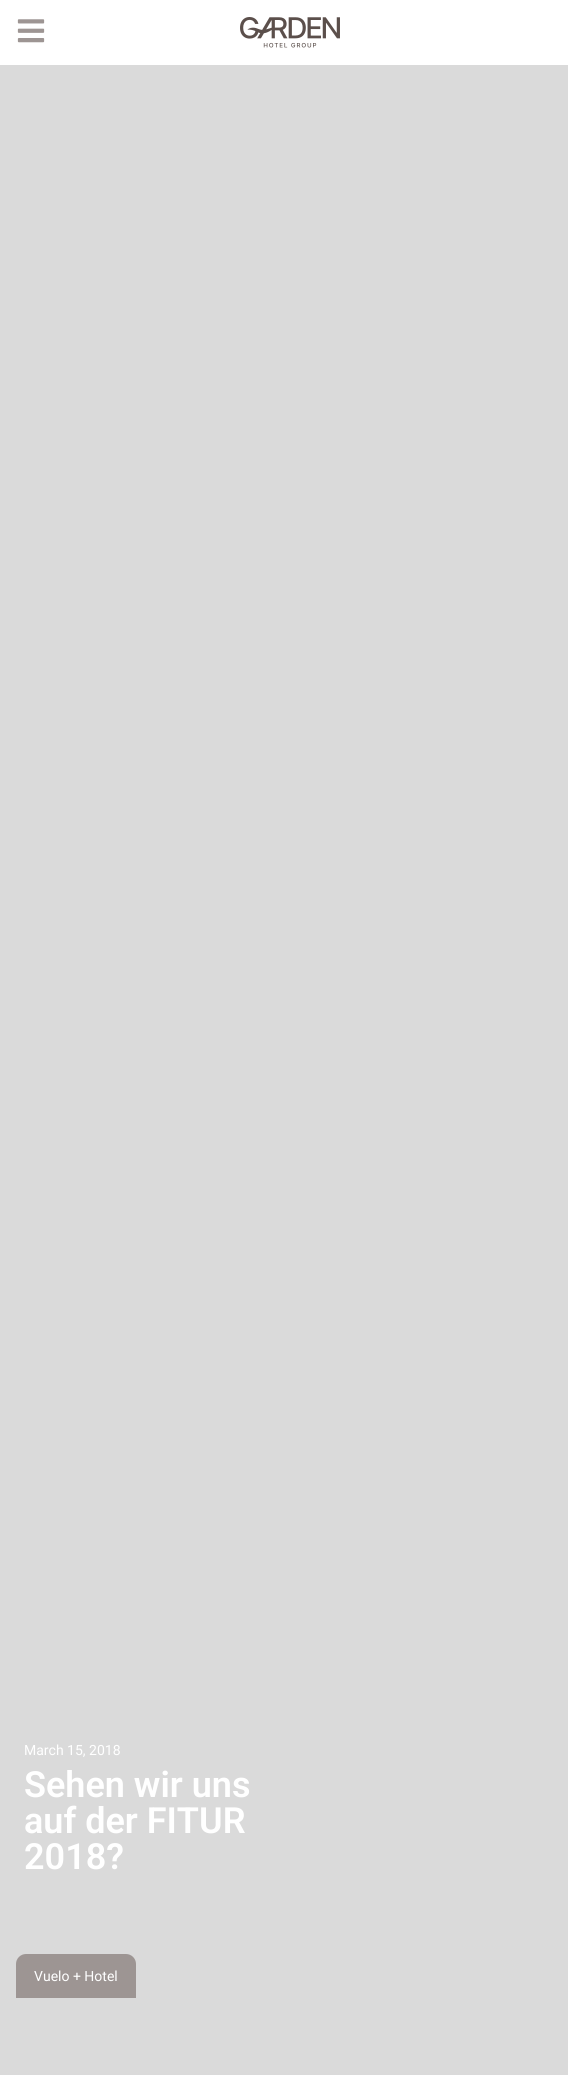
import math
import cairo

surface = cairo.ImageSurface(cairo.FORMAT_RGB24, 568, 2075)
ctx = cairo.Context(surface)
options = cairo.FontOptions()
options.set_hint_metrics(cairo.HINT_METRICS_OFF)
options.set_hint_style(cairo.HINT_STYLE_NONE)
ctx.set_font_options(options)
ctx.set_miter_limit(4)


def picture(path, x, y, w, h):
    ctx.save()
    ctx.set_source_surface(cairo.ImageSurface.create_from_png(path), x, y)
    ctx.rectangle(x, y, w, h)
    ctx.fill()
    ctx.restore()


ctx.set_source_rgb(0.855, 0.855, 0.855)
ctx.paint()
ctx.set_source_rgb(1, 1, 1)
ctx.rectangle(0, 0, 568, 65)
ctx.fill()
picture("img1.png", 17, 19, 28, 24)
picture("img2.png", 240, 17, 100, 31)
ctx.select_font_face("Roboto")
ctx.set_font_size(14)
ctx.move_to(24, 1755)
ctx.show_text("March 15, 2018")
ctx.select_font_face("Roboto SemiBold")
ctx.set_font_size(36)
ctx.move_to(24, 1797)
ctx.show_text("Sehen wir uns")
ctx.move_to(24, 1833)
ctx.show_text("auf der FITUR")
ctx.move_to(24, 1869)
ctx.show_text("2018?")
ctx.set_source_rgb(0.616, 0.584, 0.576)
ctx.new_path()
ctx.move_to(26, 1954)
ctx.line_to(126, 1954)
ctx.curve_to(131.5, 1954, 136, 1958.5, 136, 1964)
ctx.line_to(136, 1998)
ctx.line_to(16, 1998)
ctx.line_to(16, 1964)
ctx.curve_to(16, 1958.5, 20.5, 1954, 26, 1954)
ctx.close_path()
ctx.fill()
ctx.select_font_face("Roboto")
ctx.set_font_size(14)
ctx.set_source_rgb(1, 1, 1)
ctx.move_to(34, 1981)
ctx.show_text("Vuelo + Hotel")
surface.write_to_png("page.png")
